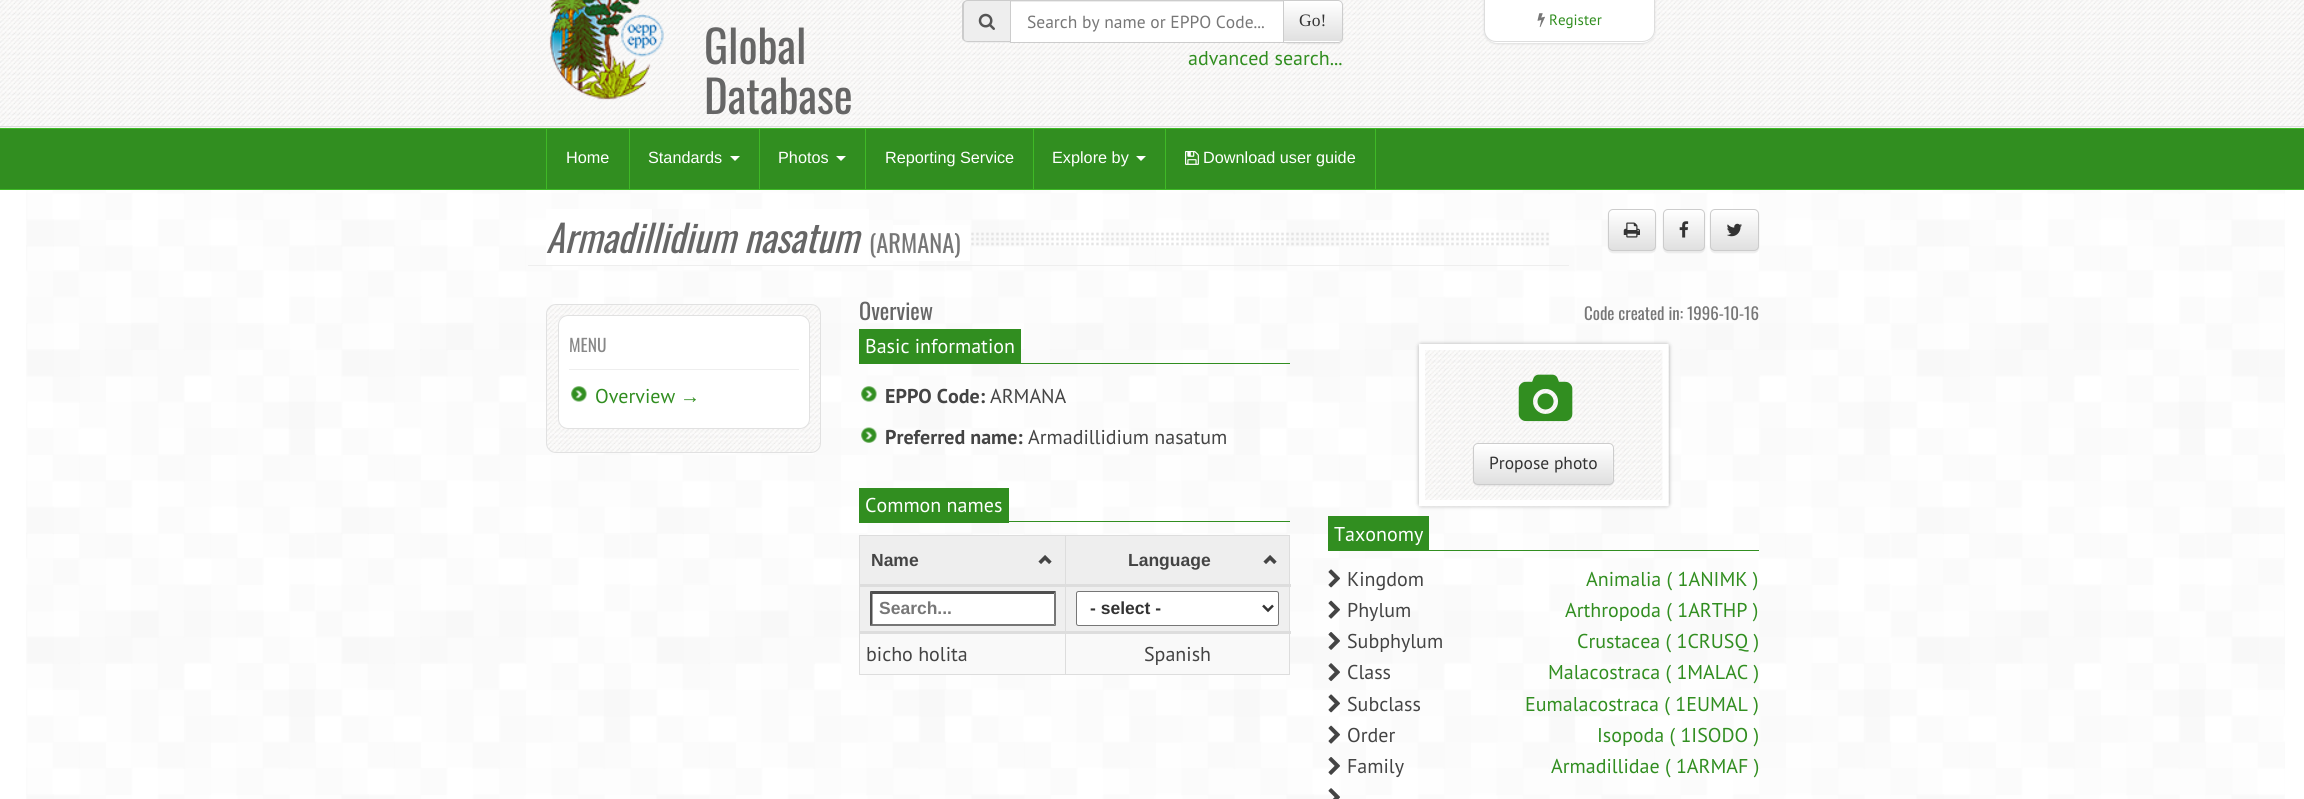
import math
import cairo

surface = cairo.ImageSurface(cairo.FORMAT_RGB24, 2304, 799)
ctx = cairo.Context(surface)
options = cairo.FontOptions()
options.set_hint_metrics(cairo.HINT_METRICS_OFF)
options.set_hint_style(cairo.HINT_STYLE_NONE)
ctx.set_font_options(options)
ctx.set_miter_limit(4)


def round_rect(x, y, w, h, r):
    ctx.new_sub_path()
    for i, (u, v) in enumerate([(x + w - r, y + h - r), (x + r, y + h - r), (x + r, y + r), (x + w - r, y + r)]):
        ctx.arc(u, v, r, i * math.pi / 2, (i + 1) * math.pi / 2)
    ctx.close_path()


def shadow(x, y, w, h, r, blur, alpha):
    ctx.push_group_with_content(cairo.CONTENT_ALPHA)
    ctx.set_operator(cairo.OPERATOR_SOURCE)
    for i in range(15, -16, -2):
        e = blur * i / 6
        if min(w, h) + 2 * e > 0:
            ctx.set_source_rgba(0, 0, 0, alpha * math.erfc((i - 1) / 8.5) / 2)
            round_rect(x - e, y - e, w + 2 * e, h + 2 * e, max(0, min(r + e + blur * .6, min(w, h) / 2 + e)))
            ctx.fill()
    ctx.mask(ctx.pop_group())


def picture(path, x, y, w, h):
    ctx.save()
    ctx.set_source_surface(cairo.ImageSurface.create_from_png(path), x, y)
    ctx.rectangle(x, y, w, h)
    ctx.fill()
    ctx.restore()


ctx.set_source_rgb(1, 1, 1)
ctx.paint()
picture("img1.png", 26, 127, 2259, 672)
picture("img2.png", 0, 0, 2304, 128)
ctx.set_source_rgb(0.867, 0.867, 0.867)
ctx.rectangle(0, 126, 2304, 1)
ctx.fill()
ctx.set_source_rgb(0.933, 0.933, 0.933)
ctx.new_path()
ctx.move_to(968, 0)
ctx.line_to(1010, 0)
ctx.line_to(1010, 43)
ctx.line_to(968, 43)
ctx.curve_to(965, 43, 963, 41, 963, 38)
ctx.line_to(963, 5)
ctx.curve_to(963, 2, 965, 0, 968, 0)
ctx.close_path()
ctx.fill()
ctx.set_source_rgb(0.8, 0.8, 0.8)
ctx.set_fill_rule(cairo.FILL_RULE_EVEN_ODD)
ctx.new_path()
ctx.move_to(968, 0)
ctx.line_to(1010, 0)
ctx.line_to(1010, 42)
ctx.line_to(968, 42)
ctx.curve_to(965, 42, 962, 40, 962, 38)
ctx.line_to(962, 5)
ctx.curve_to(962, 2, 965, 0, 968, 0)
ctx.close_path()
ctx.move_to(968, 1)
ctx.line_to(1010, 1)
ctx.line_to(1010, 41)
ctx.line_to(968, 41)
ctx.curve_to(965, 41, 964, 40, 964, 38)
ctx.line_to(964, 5)
ctx.curve_to(964, 3, 965, 1, 968, 1)
ctx.close_path()
ctx.fill()
picture("img3.png", 978, 13, 17, 17)
ctx.set_source_rgb(0, 0, 0)
shadow(1283, 1, 60, 43, 5, 0.5, 0.07)
ctx.set_source_rgb(1, 1, 1)
ctx.rectangle(1011, 2, 272, 40)
ctx.fill()
ctx.set_source_rgb(0.925, 0.925, 0.925)
ctx.rectangle(1011, 1, 272, 1)
ctx.fill()
ctx.set_source_rgb(1, 1, 1)
ctx.new_path()
ctx.move_to(1283, 0)
ctx.line_to(1338, 0)
ctx.curve_to(1341, 0, 1343, 2, 1343, 5)
ctx.line_to(1343, 38)
ctx.curve_to(1343, 41, 1341, 43, 1338, 43)
ctx.line_to(1283, 43)
ctx.close_path()
ctx.fill()
ctx.save()
ctx.set_fill_rule(cairo.FILL_RULE_WINDING)
ctx.new_path()
ctx.move_to(1283, 0)
ctx.line_to(1338, 0)
ctx.curve_to(1341, 0, 1343, 2, 1343, 5)
ctx.line_to(1343, 38)
ctx.curve_to(1343, 41, 1341, 43, 1338, 43)
ctx.line_to(1283, 43)
ctx.close_path()
ctx.clip()
gradient = cairo.LinearGradient(1313, 1.2, 1313, 41)
gradient.add_color_stop_rgba(0, 1, 1, 1, 1)
gradient.add_color_stop_rgba(1, 0.878, 0.878, 0.878, 1)
ctx.set_source(gradient)
ctx.rectangle(1284, 1, 59, 40)
ctx.fill()
ctx.restore()
ctx.new_path()
ctx.move_to(1283.5, 0.5)
ctx.line_to(1338, 0.5)
ctx.curve_to(1340.5, 0.5, 1342.5, 2.5, 1342.5, 5)
ctx.line_to(1342.5, 38)
ctx.curve_to(1342.5, 40.5, 1340.5, 42.5, 1338, 42.5)
ctx.line_to(1283.5, 42.5)
ctx.close_path()
ctx.set_source_rgb(0.8, 0.8, 0.8)
ctx.set_line_width(1)
ctx.stroke()
ctx.rectangle(1010.5, 0.5, 273, 42)
ctx.stroke()
ctx.select_font_face("PT Sans")
ctx.set_font_size(17.5)
ctx.set_source_rgb(0.467, 0.467, 0.467)
ctx.move_to(1027, 28)
ctx.show_text("Search by name or EPPO Code...")
ctx.select_font_face("Liberation Serif")
ctx.set_source_rgb(0.2, 0.2, 0.2)
ctx.move_to(1299, 26)
ctx.show_text("Go!")
ctx.select_font_face("PT Sans")
ctx.set_font_size(20)
ctx.set_source_rgb(0.192, 0.557, 0.125)
ctx.move_to(1188, 65)
ctx.show_text("advanced search...")
ctx.set_source_rgb(0.867, 0.867, 0.867)
shadow(1484, -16, 171, 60, 13, 1, 1)
ctx.set_source_rgb(1, 1, 1)
ctx.new_path()
ctx.move_to(1484, -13)
ctx.line_to(1655, -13)
ctx.line_to(1655, 30)
ctx.curve_to(1655, 37, 1649, 43, 1642, 43)
ctx.line_to(1497, 43)
ctx.curve_to(1490, 43, 1484, 37, 1484, 30)
ctx.close_path()
ctx.fill()
ctx.set_source_rgb(0.867, 0.867, 0.867)
ctx.new_path()
ctx.move_to(1484, -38)
ctx.line_to(1655, -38)
ctx.line_to(1655, 30)
ctx.curve_to(1655, 37, 1649, 42, 1642, 42)
ctx.line_to(1496, 42)
ctx.curve_to(1489, 42, 1484, 37, 1484, 30)
ctx.close_path()
ctx.move_to(1485, -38)
ctx.line_to(1654, -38)
ctx.line_to(1654, 30)
ctx.curve_to(1654, 36, 1649, 41, 1642, 41)
ctx.line_to(1496, 41)
ctx.curve_to(1490, 41, 1485, 36, 1485, 30)
ctx.close_path()
ctx.fill()
picture("img4.png", 1537, 13, 8, 15)
ctx.set_font_size(15)
ctx.set_source_rgb(0.192, 0.557, 0.125)
ctx.move_to(1549, 25)
ctx.show_text("Register")
picture("img5.png", 549, 0, 115, 100)
ctx.select_font_face("Oswald")
ctx.set_font_size(45)
ctx.set_source_rgb(0.4, 0.4, 0.4)
ctx.move_to(704, 64)
ctx.show_text("Global")
ctx.move_to(704, 114)
ctx.show_text("Database")
ctx.set_source_rgb(0.192, 0.557, 0.125)
ctx.rectangle(0, 129, 2304, 60)
ctx.fill()
ctx.set_source_rgb(0.243, 0.729, 0.145)
ctx.rectangle(0, 128, 2304, 1)
ctx.fill()
ctx.rectangle(0, 189, 2304, 1)
ctx.fill()
ctx.set_source_rgb(0.247, 0.725, 0.149)
ctx.rectangle(1375, 129, 1, 60)
ctx.fill()
ctx.rectangle(546, 129, 1, 60)
ctx.fill()
ctx.select_font_face("Liberation Sans")
ctx.set_font_size(16.25)
ctx.set_source_rgb(1, 1, 1)
ctx.move_to(566, 163)
ctx.show_text("Home")
ctx.set_source_rgb(0.247, 0.725, 0.149)
ctx.rectangle(629, 129, 1, 60)
ctx.fill()
ctx.set_source_rgb(1, 1, 1)
ctx.move_to(648, 163)
ctx.show_text("Standards")
ctx.set_fill_rule(cairo.FILL_RULE_WINDING)
ctx.new_path()
ctx.move_to(730, 156)
ctx.line_to(740, 156)
ctx.line_to(735, 161)
ctx.close_path()
ctx.fill()
ctx.set_source_rgb(0.247, 0.725, 0.149)
ctx.rectangle(759, 129, 1, 60)
ctx.fill()
ctx.set_source_rgb(1, 1, 1)
ctx.move_to(778, 163)
ctx.show_text("Photos")
ctx.new_path()
ctx.move_to(836, 156)
ctx.line_to(846, 156)
ctx.line_to(841, 161)
ctx.close_path()
ctx.fill()
ctx.set_source_rgb(0.247, 0.725, 0.149)
ctx.rectangle(865, 129, 1, 60)
ctx.fill()
ctx.set_source_rgb(1, 1, 1)
ctx.move_to(885, 163)
ctx.show_text("Reporting Service")
ctx.set_source_rgb(0.247, 0.725, 0.149)
ctx.rectangle(1033, 129, 1, 60)
ctx.fill()
ctx.set_source_rgb(1, 1, 1)
ctx.move_to(1052, 163)
ctx.show_text("Explore by")
ctx.new_path()
ctx.move_to(1136, 156)
ctx.line_to(1146, 156)
ctx.line_to(1141, 161)
ctx.close_path()
ctx.fill()
ctx.set_source_rgb(0.247, 0.725, 0.149)
ctx.rectangle(1165, 129, 1, 60)
ctx.fill()
picture("img6.png", 1185, 151, 14, 14)
ctx.set_source_rgb(1, 1, 1)
ctx.move_to(1203, 163)
ctx.show_text("Download user guide")
ctx.set_source_rgb(0.933, 0.933, 0.933)
ctx.rectangle(528, 265, 1041, 1)
ctx.fill()
picture("img7.png", 971, 232, 578, 14)
ctx.set_source_rgb(1, 1, 1)
ctx.rectangle(546, 209, 323, 56)
ctx.fill()
picture("img8.png", 652, 209, 79, 56)
ctx.select_font_face("Oswald", cairo.FONT_SLANT_ITALIC)
ctx.set_font_size(37.5)
ctx.set_source_rgb(0.4, 0.4, 0.4)
ctx.move_to(546, 253)
ctx.show_text("Armadillidium nasatum")
ctx.set_source_rgb(1, 1, 1)
ctx.rectangle(893, 225, 77, 36)
ctx.fill()
ctx.select_font_face("Oswald")
ctx.set_font_size(24.5)
ctx.set_source_rgb(0.467, 0.467, 0.467)
ctx.move_to(869, 253)
ctx.show_text("(ARMANA)")
ctx.set_source_rgb(0, 0, 0)
shadow(1608, 210, 48, 43, 5, 0.5, 0.07)
ctx.save()
round_rect(1608, 209, 48, 42, 5)
ctx.clip()
gradient = cairo.LinearGradient(1632, 210, 1632, 250)
gradient.add_color_stop_rgba(0, 1, 1, 1, 1)
gradient.add_color_stop_rgba(1, 0.878, 0.878, 0.878, 1)
ctx.set_source(gradient)
ctx.rectangle(1608, 210, 48, 40)
ctx.fill()
ctx.restore()
round_rect(1608.5, 209.5, 47, 41, 4.5)
ctx.set_source_rgb(0.8, 0.8, 0.8)
ctx.stroke()
picture("img9.png", 1623, 222, 17, 16)
ctx.set_source_rgb(0, 0, 0)
shadow(1663, 210, 42, 43, 5, 0.5, 0.07)
ctx.save()
round_rect(1663, 209, 42, 42, 5)
ctx.clip()
gradient = cairo.LinearGradient(1684, 210, 1684, 250)
gradient.add_color_stop_rgba(0, 1, 1, 1, 1)
gradient.add_color_stop_rgba(1, 0.878, 0.878, 0.878, 1)
ctx.set_source(gradient)
ctx.rectangle(1663, 210, 42, 40)
ctx.fill()
ctx.restore()
round_rect(1663.5, 209.5, 41, 41, 4.5)
ctx.set_source_rgb(0.8, 0.8, 0.8)
ctx.stroke()
picture("img10.png", 1679, 221, 10, 17)
ctx.set_source_rgb(0, 0, 0)
shadow(1710, 210, 49, 43, 5, 0.5, 0.07)
ctx.save()
round_rect(1710, 209, 49, 42, 5)
ctx.clip()
gradient = cairo.LinearGradient(1734, 210, 1734, 250)
gradient.add_color_stop_rgba(0, 1, 1, 1, 1)
gradient.add_color_stop_rgba(1, 0.878, 0.878, 0.878, 1)
ctx.set_source(gradient)
ctx.rectangle(1710, 210, 49, 40)
ctx.fill()
ctx.restore()
round_rect(1710.5, 209.5, 48, 41, 4.5)
ctx.set_source_rgb(0.8, 0.8, 0.8)
ctx.stroke()
picture("img11.png", 1727, 223, 15, 14)
picture("img12.png", 546, 304, 275, 149)
round_rect(546.5, 304.5, 274, 148, 9.5)
ctx.set_source_rgb(0.882, 0.882, 0.882)
ctx.stroke()
ctx.set_source_rgb(1, 1, 1)
round_rect(558.5, 315.5, 251, 113, 9.5)
ctx.fill_preserve()
ctx.set_source_rgb(0.882, 0.882, 0.882)
ctx.stroke()
ctx.set_source_rgb(0.933, 0.933, 0.933)
ctx.rectangle(569, 369, 230, 1)
ctx.fill()
ctx.set_font_size(17.5)
ctx.set_source_rgb(0.533, 0.533, 0.533)
ctx.move_to(569, 352)
ctx.show_text("MENU")
picture("img13.png", 571, 386, 16, 16)
ctx.select_font_face("PT Sans")
ctx.set_font_size(20)
ctx.set_source_rgb(0.192, 0.557, 0.125)
ctx.move_to(595, 403)
ctx.show_text("Overview")
ctx.select_font_face("Liberation Sans")
ctx.move_to(680, 403)
ctx.show_text("→")
ctx.select_font_face("Oswald")
ctx.set_font_size(22.5)
ctx.set_source_rgb(0.4, 0.4, 0.4)
ctx.move_to(859, 320)
ctx.show_text("Overview")
ctx.set_font_size(16.9)
ctx.set_source_rgb(0.467, 0.467, 0.467)
ctx.move_to(1584, 320)
ctx.show_text("Code created in: 1996-10-16")
ctx.set_source_rgb(0.192, 0.557, 0.125)
ctx.rectangle(1021, 363, 269, 1)
ctx.fill()
ctx.rectangle(859, 329, 162, 35)
ctx.fill()
ctx.select_font_face("PT Sans")
ctx.set_font_size(20)
ctx.set_source_rgb(1, 1, 1)
ctx.move_to(865, 353)
ctx.show_text("Basic information")
picture("img14.png", 861, 386, 16, 16)
ctx.select_font_face("PT Sans", cairo.FONT_SLANT_NORMAL, cairo.FONT_WEIGHT_BOLD)
ctx.set_source_rgb(0.267, 0.267, 0.267)
ctx.move_to(885, 403)
ctx.show_text("EPPO Code:")
ctx.select_font_face("PT Sans")
ctx.move_to(990, 403)
ctx.show_text("ARMANA")
picture("img15.png", 861, 427, 16, 16)
ctx.select_font_face("PT Sans", cairo.FONT_SLANT_NORMAL, cairo.FONT_WEIGHT_BOLD)
ctx.move_to(885, 444)
ctx.show_text("Preferred name:")
ctx.select_font_face("PT Sans")
ctx.move_to(1028, 444)
ctx.show_text("Armadillidium nasatum")
ctx.set_source_rgb(0.192, 0.557, 0.125)
ctx.rectangle(1009, 521, 281, 1)
ctx.fill()
ctx.rectangle(859, 488, 150, 35)
ctx.fill()
ctx.set_source_rgb(1, 1, 1)
ctx.move_to(865, 512)
ctx.show_text("Common names")
ctx.set_source_rgb(0.867, 0.867, 0.867)
ctx.rectangle(859, 535, 431, 1)
ctx.fill()
ctx.rectangle(1289, 535, 1, 140)
ctx.fill()
ctx.rectangle(859, 674, 431, 1)
ctx.fill()
ctx.rectangle(859, 535, 1, 140)
ctx.fill()
ctx.set_source_rgb(0.933, 0.933, 0.933)
ctx.rectangle(860, 536, 205, 48)
ctx.fill()
ctx.select_font_face("Liberation Sans", cairo.FONT_SLANT_NORMAL, cairo.FONT_WEIGHT_BOLD)
ctx.set_font_size(17.5)
ctx.set_source_rgb(0.267, 0.267, 0.267)
ctx.move_to(871, 566)
ctx.show_text("Name")
picture("img16.png", 1038, 555, 14, 9)
ctx.set_source_rgb(0.933, 0.933, 0.933)
ctx.rectangle(1066, 536, 223, 48)
ctx.fill()
ctx.set_source_rgb(0.937, 0.937, 0.937)
ctx.rectangle(860, 587, 429, 44)
ctx.fill()
ctx.set_source_rgb(0.867, 0.867, 0.867)
ctx.rectangle(1065, 535, 1, 140)
ctx.fill()
ctx.rectangle(859, 584, 432, 3)
ctx.fill()
ctx.set_source_rgb(0.267, 0.267, 0.267)
ctx.move_to(1128, 566)
ctx.show_text("Language")
picture("img16.png", 1263, 555, 14, 9)
ctx.set_source_rgb(1, 1, 1)
ctx.rectangle(870, 591, 186, 35)
ctx.fill()
ctx.set_source_rgb(0.31, 0.31, 0.31)
ctx.new_path()
ctx.move_to(870, 591)
ctx.line_to(1056, 591)
ctx.line_to(1054, 594)
ctx.line_to(872, 594)
ctx.close_path()
ctx.fill()
ctx.set_source_rgb(0.463, 0.463, 0.463)
ctx.new_path()
ctx.move_to(1056, 591)
ctx.line_to(1056, 626)
ctx.line_to(1054, 624)
ctx.line_to(1054, 594)
ctx.close_path()
ctx.fill()
ctx.new_path()
ctx.move_to(1056, 626)
ctx.line_to(870, 626)
ctx.line_to(872, 624)
ctx.line_to(1054, 624)
ctx.close_path()
ctx.fill()
ctx.set_source_rgb(0.31, 0.31, 0.31)
ctx.new_path()
ctx.move_to(870, 626)
ctx.line_to(870, 591)
ctx.line_to(872.5, 594)
ctx.line_to(872.5, 624)
ctx.close_path()
ctx.fill()
ctx.set_source_rgb(0.467, 0.467, 0.467)
ctx.move_to(879, 614)
ctx.show_text("Search...")
ctx.set_source_rgb(0.867, 0.867, 0.867)
ctx.rectangle(859, 631, 432, 3)
ctx.fill()
ctx.set_source_rgb(1, 1, 1)
round_rect(1076.5, 591.5, 202, 34, 2)
ctx.fill_preserve()
ctx.set_source_rgb(0.463, 0.463, 0.463)
ctx.stroke()
ctx.new_path()
ctx.move_to(1263, 605.5)
ctx.line_to(1268, 610.5)
ctx.line_to(1273, 605.5)
ctx.set_source_rgb(0.2, 0.2, 0.2)
ctx.set_line_width(2.5)
ctx.stroke()
ctx.move_to(1090, 614)
ctx.show_text("- select -")
ctx.set_source_rgb(0.976, 0.976, 0.976)
ctx.rectangle(860, 634, 205, 40)
ctx.fill()
ctx.select_font_face("PT Sans")
ctx.set_font_size(20)
ctx.set_source_rgb(0.267, 0.267, 0.267)
ctx.move_to(866, 661)
ctx.show_text("bicho holita")
ctx.set_source_rgb(0.976, 0.976, 0.976)
ctx.rectangle(1066, 634, 223, 40)
ctx.fill()
ctx.set_source_rgb(0.267, 0.267, 0.267)
ctx.move_to(1144, 661)
ctx.show_text("Spanish")
ctx.set_source_rgb(0.667, 0.667, 0.667)
shadow(1419, 344, 250, 162, 2.5, 2, 1)
picture("img17.png", 1419, 344, 250, 163)
ctx.new_path()
ctx.move_to(1422, 347)
ctx.line_to(1665.5, 347)
ctx.line_to(1665.5, 503)
ctx.line_to(1422, 503)
ctx.close_path()
ctx.set_source_rgb(1, 1, 1)
ctx.set_line_width(6.2)
ctx.stroke()
picture("img18.png", 1518, 374, 55, 48)
ctx.set_source_rgb(0, 0, 0)
shadow(1473, 444, 141, 42, 5, 0.5, 0.07)
ctx.save()
round_rect(1473, 443, 141, 42, 5)
ctx.clip()
gradient = cairo.LinearGradient(1543, 444, 1543, 484)
gradient.add_color_stop_rgba(0, 1, 1, 1, 1)
gradient.add_color_stop_rgba(1, 0.878, 0.878, 0.878, 1)
ctx.set_source(gradient)
ctx.rectangle(1473, 444, 141, 40)
ctx.fill()
ctx.restore()
ctx.set_source_rgba(1, 1, 1, 0.15)
ctx.new_path()
ctx.move_to(1478, 445)
ctx.line_to(1609, 445)
ctx.curve_to(1614, 445, 1612, 458, 1612, 460)
ctx.line_to(1612, 483)
ctx.curve_to(1612, 482, 1613, 481, 1613, 480)
ctx.line_to(1613, 448)
ctx.curve_to(1613, 446, 1611, 444, 1609, 444)
ctx.line_to(1478, 444)
ctx.curve_to(1476, 444, 1474, 446, 1474, 448)
ctx.line_to(1474, 449)
ctx.curve_to(1474, 447, 1475, 445, 1478, 445)
ctx.close_path()
ctx.fill()
round_rect(1473.5, 443.5, 140, 41, 4.5)
ctx.set_source_rgb(0.8, 0.8, 0.8)
ctx.set_line_width(1)
ctx.stroke()
ctx.set_font_size(17.5)
ctx.set_source_rgb(0.2, 0.2, 0.2)
ctx.move_to(1489, 469)
ctx.show_text("Propose photo")
ctx.set_source_rgb(0.192, 0.557, 0.125)
ctx.rectangle(1429, 550, 330, 1)
ctx.fill()
ctx.rectangle(1328, 516, 101, 35)
ctx.fill()
ctx.set_font_size(20)
ctx.set_source_rgb(1, 1, 1)
ctx.move_to(1334, 541)
ctx.show_text("Taxonomy")
picture("img19.png", 1328, 569, 12, 19)
ctx.set_source_rgb(0.267, 0.267, 0.267)
ctx.move_to(1347, 586)
ctx.show_text("Kingdom")
ctx.set_source_rgb(0.192, 0.557, 0.125)
ctx.move_to(1586, 586)
ctx.show_text("Animalia ( 1ANIMK )")
picture("img20.png", 1328, 600, 12, 19)
ctx.set_source_rgb(0.267, 0.267, 0.267)
ctx.move_to(1347, 617)
ctx.show_text("Phylum")
ctx.set_source_rgb(0.192, 0.557, 0.125)
ctx.move_to(1565, 617)
ctx.show_text("Arthropoda ( 1ARTHP )")
picture("img21.png", 1328, 632, 12, 18)
ctx.set_source_rgb(0.267, 0.267, 0.267)
ctx.move_to(1347, 648)
ctx.show_text("Subphylum")
ctx.set_source_rgb(0.192, 0.557, 0.125)
ctx.move_to(1577, 648)
ctx.show_text("Crustacea ( 1CRUSQ )")
picture("img22.png", 1328, 663, 12, 19)
ctx.set_source_rgb(0.267, 0.267, 0.267)
ctx.move_to(1347, 679)
ctx.show_text("Class")
ctx.set_source_rgb(0.192, 0.557, 0.125)
ctx.move_to(1548, 679)
ctx.show_text("Malacostraca ( 1MALAC )")
picture("img23.png", 1328, 694, 12, 19)
ctx.set_source_rgb(0.267, 0.267, 0.267)
ctx.move_to(1347, 711)
ctx.show_text("Subclass")
ctx.set_source_rgb(0.192, 0.557, 0.125)
ctx.move_to(1525, 711)
ctx.show_text("Eumalacostraca ( 1EUMAL )")
picture("img24.png", 1328, 725, 12, 19)
ctx.set_source_rgb(0.267, 0.267, 0.267)
ctx.move_to(1347, 742)
ctx.show_text("Order")
ctx.set_source_rgb(0.192, 0.557, 0.125)
ctx.move_to(1597, 742)
ctx.show_text("Isopoda ( 1ISODO )")
picture("img25.png", 1328, 757, 12, 18)
ctx.set_source_rgb(0.267, 0.267, 0.267)
ctx.move_to(1347, 773)
ctx.show_text("Family")
ctx.set_source_rgb(0.192, 0.557, 0.125)
ctx.move_to(1551, 773)
ctx.show_text("Armadillidae ( 1ARMAF )")
picture("img26.png", 1328, 788, 12, 11)
surface.write_to_png("page.png")
